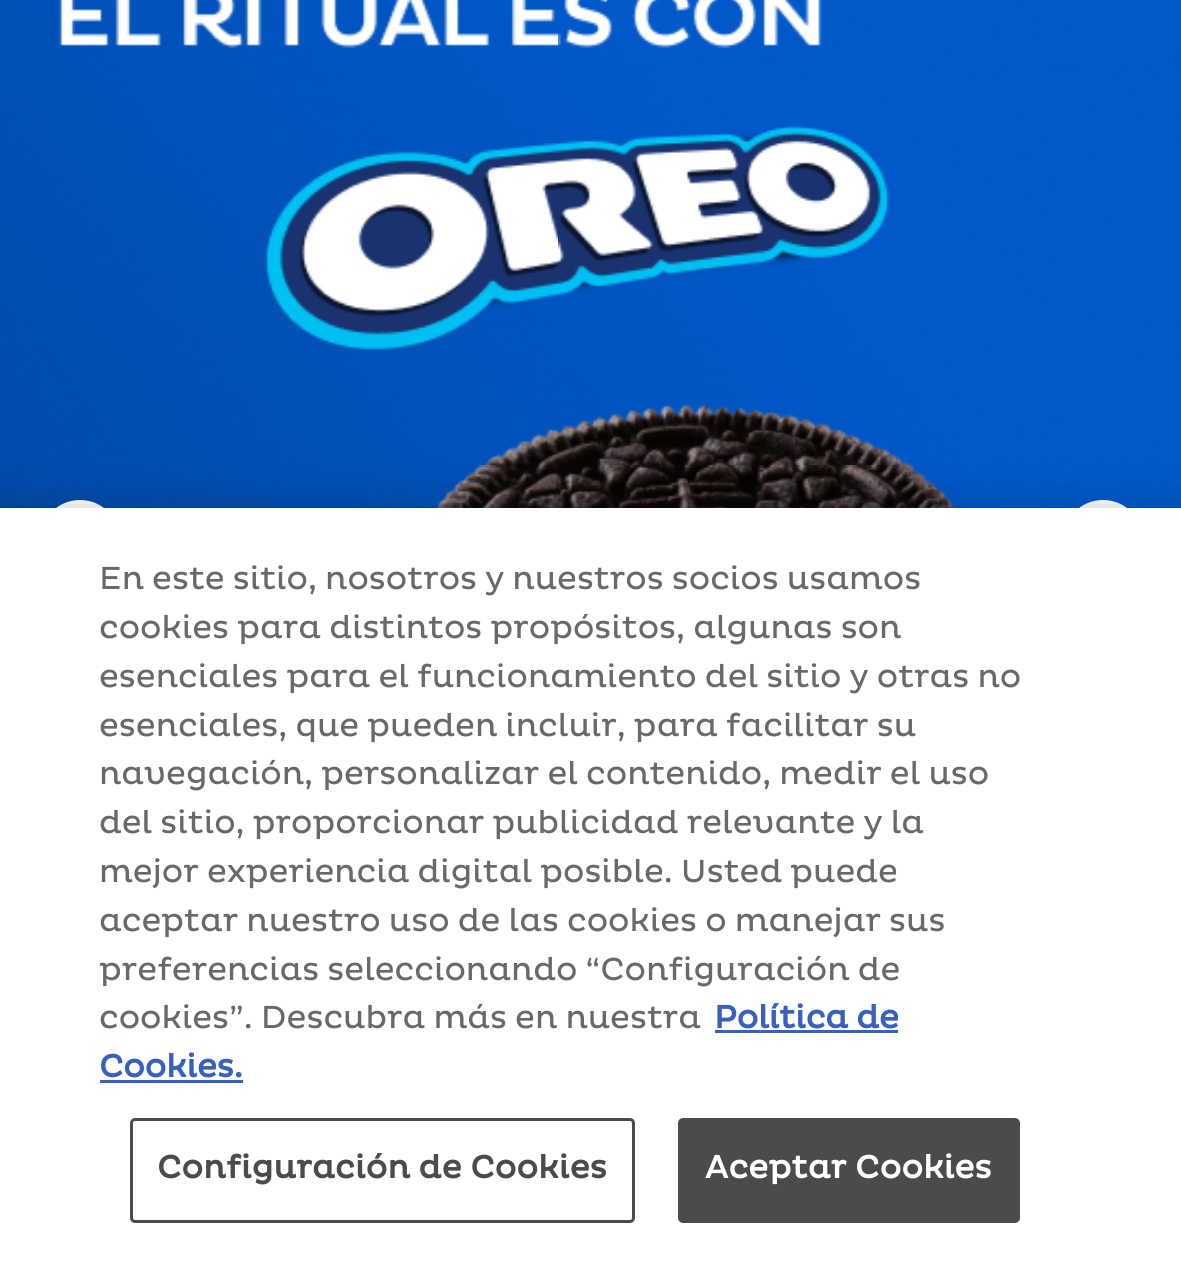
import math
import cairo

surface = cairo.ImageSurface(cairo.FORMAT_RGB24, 1181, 1262)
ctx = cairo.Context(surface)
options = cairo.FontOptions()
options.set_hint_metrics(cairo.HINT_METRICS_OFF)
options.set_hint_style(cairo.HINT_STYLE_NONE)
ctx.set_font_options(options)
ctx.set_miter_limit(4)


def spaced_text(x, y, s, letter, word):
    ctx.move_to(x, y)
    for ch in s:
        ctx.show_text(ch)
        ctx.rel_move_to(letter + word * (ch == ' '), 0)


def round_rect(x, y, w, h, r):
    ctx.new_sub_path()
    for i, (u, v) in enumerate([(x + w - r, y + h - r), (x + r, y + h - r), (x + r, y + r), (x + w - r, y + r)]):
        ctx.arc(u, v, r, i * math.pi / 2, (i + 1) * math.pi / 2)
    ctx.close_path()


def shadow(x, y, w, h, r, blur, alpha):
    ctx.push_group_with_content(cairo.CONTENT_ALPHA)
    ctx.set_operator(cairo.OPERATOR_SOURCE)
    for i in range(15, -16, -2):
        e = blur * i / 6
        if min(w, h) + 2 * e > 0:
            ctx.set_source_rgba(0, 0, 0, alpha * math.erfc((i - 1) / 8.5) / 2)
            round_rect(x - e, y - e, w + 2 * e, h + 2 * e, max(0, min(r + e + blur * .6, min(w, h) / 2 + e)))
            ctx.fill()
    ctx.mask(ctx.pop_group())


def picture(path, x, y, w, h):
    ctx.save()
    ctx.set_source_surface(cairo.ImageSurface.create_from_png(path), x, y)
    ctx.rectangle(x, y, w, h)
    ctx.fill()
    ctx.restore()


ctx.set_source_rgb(1, 1, 1)
ctx.paint()
picture("img1.png", 0, 0, 1181, 508)
ctx.set_source_rgb(1, 1, 1)
ctx.arc(80, 540, 40, 0, 2 * math.pi)
ctx.fill()
ctx.arc(1103, 540, 40, 0, 2 * math.pi)
ctx.fill()
ctx.set_source_rgb(0, 0, 0)
shadow(0, 508, 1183, 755, 0, 22.5, 0.2)
ctx.set_source_rgb(1, 1, 1)
ctx.rectangle(0, 508, 1181, 754)
ctx.fill()
ctx.select_font_face("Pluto")
ctx.set_font_size(32.5)
ctx.set_source_rgb(0.412, 0.412, 0.412)
ctx.move_to(99, 589)
ctx.show_text("En este sitio, nosotros y nuestros socios usamos")
ctx.move_to(99, 638)
ctx.show_text("cookies para distintos propósitos, algunas son")
ctx.move_to(99, 687)
ctx.show_text("esenciales para el funcionamiento del sitio y otras no")
ctx.move_to(99, 736)
ctx.show_text("esenciales, que pueden incluir, para facilitar su")
ctx.move_to(99, 784)
ctx.show_text("navegación, personalizar el contenido, medir el uso")
ctx.move_to(99, 833)
ctx.show_text("del sitio, proporcionar publicidad relevante y la")
ctx.move_to(99, 882)
ctx.show_text("mejor experiencia digital posible. Usted puede")
ctx.move_to(99, 931)
ctx.show_text("aceptar nuestro uso de las cookies o manejar sus")
ctx.move_to(99, 980)
ctx.show_text("preferencias seleccionando “Configuración de")
ctx.move_to(99, 1028)
ctx.show_text("cookies”. Descubra más en nuestra")
ctx.select_font_face("Pluto", cairo.FONT_SLANT_NORMAL, cairo.FONT_WEIGHT_BOLD)
ctx.set_source_rgb(0.22, 0.376, 0.745)
ctx.move_to(714, 1028)
ctx.show_text("Política de")
ctx.rectangle(715, 1030, 183, 3)
ctx.fill()
ctx.move_to(99, 1077)
ctx.show_text("Cookies.")
ctx.rectangle(100, 1080, 143, 3)
ctx.fill()
round_rect(131.5, 1119.5, 502, 102, 3.5)
ctx.set_source_rgb(0.294, 0.294, 0.294)
ctx.set_line_width(3)
ctx.stroke()
spaced_text(157, 1178, "Configuración de Cookies", 0.3, 0)
round_rect(679.5, 1119.5, 339, 102, 3.5)
ctx.fill_preserve()
ctx.stroke()
ctx.set_source_rgb(1, 1, 1)
spaced_text(705, 1178, "Aceptar Cookies", 0.3, 0)
surface.write_to_png("page.png")
